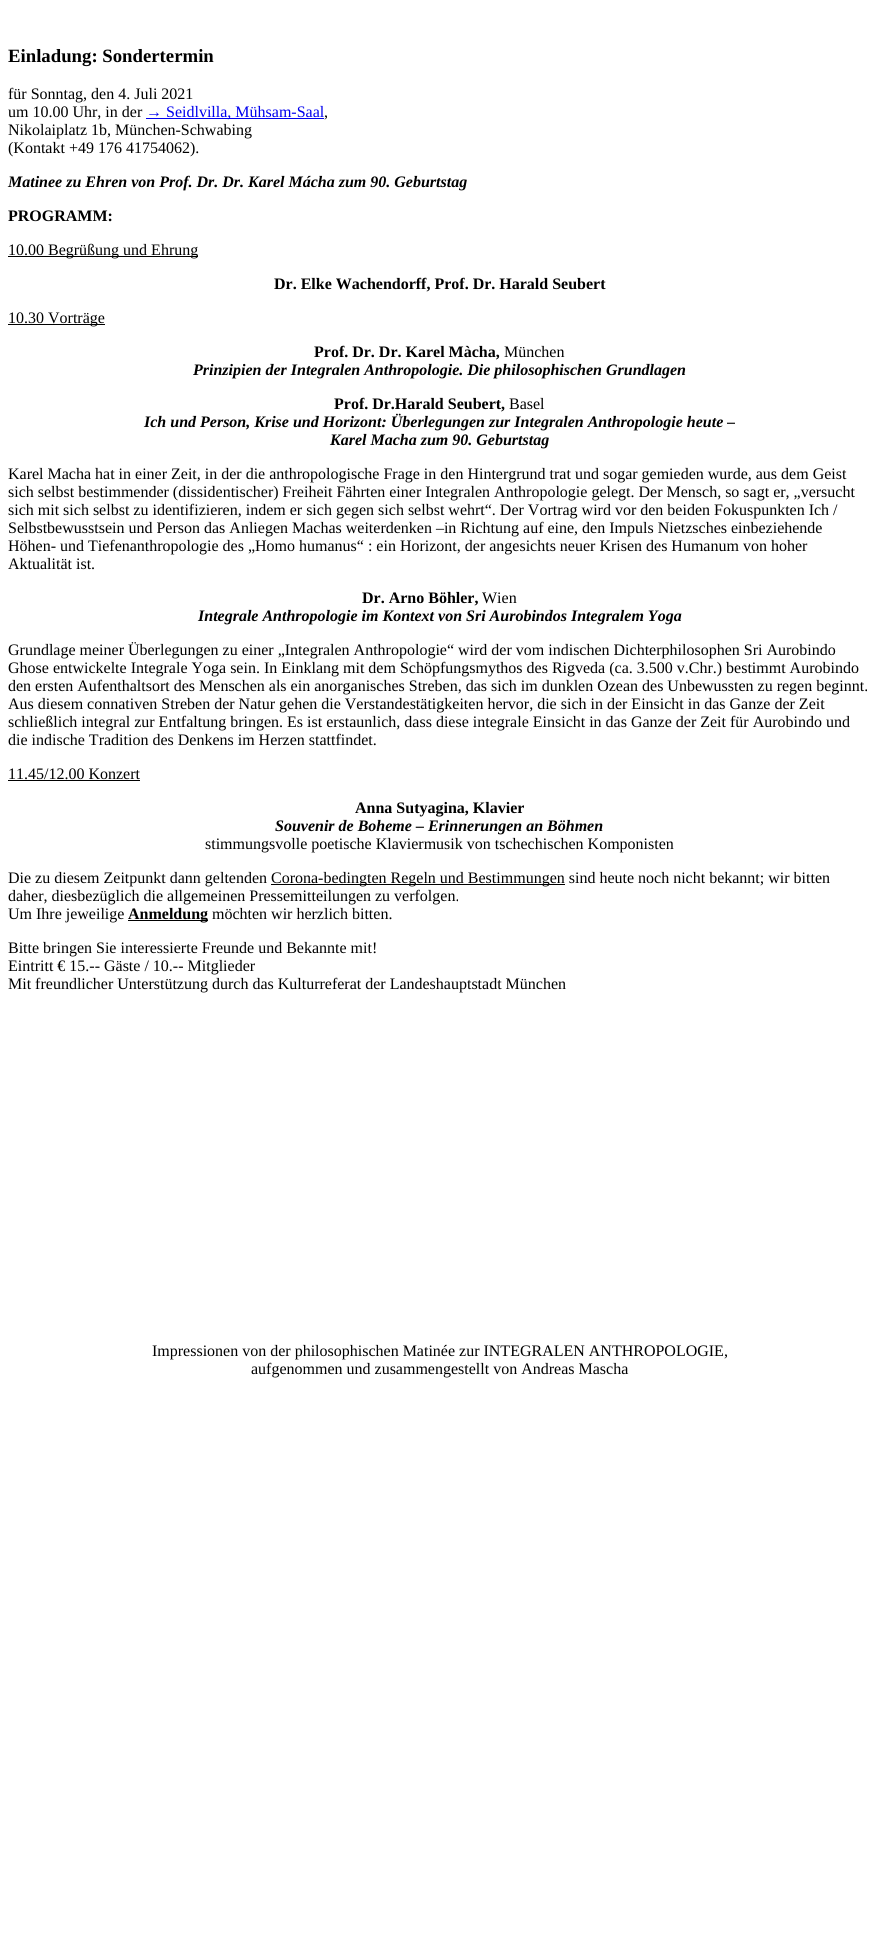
import math
import cairo

surface = cairo.ImageSurface(cairo.FORMAT_RGB24, 879, 1958)
ctx = cairo.Context(surface)
options = cairo.FontOptions()
options.set_hint_metrics(cairo.HINT_METRICS_OFF)
options.set_hint_style(cairo.HINT_STYLE_NONE)
ctx.set_font_options(options)
ctx.set_miter_limit(4)


ctx.set_source_rgb(1, 1, 1)
ctx.paint()
ctx.select_font_face("Liberation Serif", cairo.FONT_SLANT_NORMAL, cairo.FONT_WEIGHT_BOLD)
ctx.set_font_size(18.75)
ctx.set_source_rgb(0, 0, 0)
ctx.move_to(8, 62)
ctx.show_text("Einladung: Sondertermin")
ctx.select_font_face("Liberation Serif")
ctx.set_font_size(16)
ctx.move_to(8, 99)
ctx.show_text("für Sonntag, den 4. Juli 2021")
ctx.move_to(8, 117)
ctx.show_text("um 10.00 Uhr, in der")
ctx.set_source_rgb(0, 0, 0.933)
ctx.rectangle(146, 118, 178, 1)
ctx.fill()
ctx.move_to(146, 117)
ctx.show_text("→ Seidlvilla, Mühsam-Saal")
ctx.set_source_rgb(0, 0, 0)
ctx.move_to(324, 117)
ctx.show_text(",")
ctx.move_to(8, 135)
ctx.show_text("Nikolaiplatz 1b, München-Schwabing")
ctx.move_to(8, 153)
ctx.show_text("(Kontakt +49 176 41754062).")
ctx.select_font_face("Liberation Serif", cairo.FONT_SLANT_ITALIC, cairo.FONT_WEIGHT_BOLD)
ctx.move_to(8, 187)
ctx.show_text("Matinee zu Ehren von Prof. Dr. Dr. Karel Mácha zum 90. Geburtstag")
ctx.select_font_face("Liberation Serif", cairo.FONT_SLANT_NORMAL, cairo.FONT_WEIGHT_BOLD)
ctx.move_to(8, 221)
ctx.show_text("PROGRAMM:")
ctx.rectangle(8, 256, 190, 1)
ctx.fill()
ctx.select_font_face("Liberation Serif")
ctx.move_to(8, 255)
ctx.show_text("10.00 Begrüßung und Ehrung")
ctx.select_font_face("Liberation Serif", cairo.FONT_SLANT_NORMAL, cairo.FONT_WEIGHT_BOLD)
ctx.move_to(274, 289)
ctx.show_text("Dr. Elke Wachendorff, Prof. Dr. Harald Seubert")
ctx.rectangle(8, 324, 97, 1)
ctx.fill()
ctx.select_font_face("Liberation Serif")
ctx.move_to(8, 323)
ctx.show_text("10.30 Vorträge")
ctx.select_font_face("Liberation Serif", cairo.FONT_SLANT_NORMAL, cairo.FONT_WEIGHT_BOLD)
ctx.move_to(314, 357)
ctx.show_text("Prof. Dr. Dr. Karel Màcha,")
ctx.select_font_face("Liberation Serif")
ctx.move_to(504, 357)
ctx.show_text("München")
ctx.select_font_face("Liberation Serif", cairo.FONT_SLANT_ITALIC, cairo.FONT_WEIGHT_BOLD)
ctx.move_to(193, 375)
ctx.show_text("Prinzipien der Integralen Anthropologie. Die philosophischen Grundlagen")
ctx.select_font_face("Liberation Serif", cairo.FONT_SLANT_NORMAL, cairo.FONT_WEIGHT_BOLD)
ctx.move_to(334, 409)
ctx.show_text("Prof. Dr.Harald Seubert,")
ctx.select_font_face("Liberation Serif")
ctx.move_to(509, 409)
ctx.show_text("Basel")
ctx.select_font_face("Liberation Serif", cairo.FONT_SLANT_ITALIC, cairo.FONT_WEIGHT_BOLD)
ctx.move_to(144, 427)
ctx.show_text("Ich und Person, Krise und Horizont: Überlegungen zur Integralen Anthropologie heute –")
ctx.move_to(330, 445)
ctx.show_text("Karel Macha zum 90. Geburtstag")
ctx.select_font_face("Liberation Serif")
ctx.move_to(8, 479)
ctx.show_text("Karel Macha hat in einer Zeit, in der die anthropologische Frage in den Hintergrund trat und sogar gemieden wurde, aus dem Geist")
ctx.move_to(8, 497)
ctx.show_text("sich selbst bestimmender (dissidentischer) Freiheit Fährten einer Integralen Anthropologie gelegt. Der Mensch, so sagt er, „versucht")
ctx.move_to(8, 515)
ctx.show_text("sich mit sich selbst zu identifizieren, indem er sich gegen sich selbst wehrt“. Der Vortrag wird vor den beiden Fokuspunkten Ich /")
ctx.move_to(8, 533)
ctx.show_text("Selbstbewusstsein und Person das Anliegen Machas weiterdenken –in Richtung auf eine, den Impuls Nietzsches einbeziehende")
ctx.move_to(8, 551)
ctx.show_text("Höhen- und Tiefenanthropologie des „Homo humanus“ : ein Horizont, der angesichts neuer Krisen des Humanum von hoher")
ctx.move_to(8, 569)
ctx.show_text("Aktualität ist.")
ctx.select_font_face("Liberation Serif", cairo.FONT_SLANT_NORMAL, cairo.FONT_WEIGHT_BOLD)
ctx.move_to(362, 603)
ctx.show_text("Dr. Arno Böhler,")
ctx.select_font_face("Liberation Serif")
ctx.move_to(482, 603)
ctx.show_text("Wien")
ctx.select_font_face("Liberation Serif", cairo.FONT_SLANT_ITALIC, cairo.FONT_WEIGHT_BOLD)
ctx.move_to(198, 621)
ctx.show_text("Integrale Anthropologie im Kontext von Sri Aurobindos Integralem Yoga")
ctx.select_font_face("Liberation Serif")
ctx.move_to(8, 655)
ctx.show_text("Grundlage meiner Überlegungen zu einer „Integralen Anthropologie“ wird der vom indischen Dichterphilosophen Sri Aurobindo")
ctx.move_to(8, 673)
ctx.show_text("Ghose entwickelte Integrale Yoga sein. In Einklang mit dem Schöpfungsmythos des Rigveda (ca. 3.500 v.Chr.) bestimmt Aurobindo")
ctx.move_to(8, 691)
ctx.show_text("den ersten Aufenthaltsort des Menschen als ein anorganisches Streben, das sich im dunklen Ozean des Unbewussten zu regen beginnt.")
ctx.move_to(8, 709)
ctx.show_text("Aus diesem connativen Streben der Natur gehen die Verstandestätigkeiten hervor, die sich in der Einsicht in das Ganze der Zeit")
ctx.move_to(8, 727)
ctx.show_text("schließlich integral zur Entfaltung bringen. Es ist erstaunlich, dass diese integrale Einsicht in das Ganze der Zeit für Aurobindo und")
ctx.move_to(8, 745)
ctx.show_text("die indische Tradition des Denkens im Herzen stattfindet.")
ctx.move_to(8, 779)
ctx.show_text("11.45/12.00 Konzert")
ctx.rectangle(8, 780, 132, 1)
ctx.fill()
ctx.select_font_face("Liberation Serif", cairo.FONT_SLANT_NORMAL, cairo.FONT_WEIGHT_BOLD)
ctx.move_to(355, 813)
ctx.show_text("Anna Sutyagina, Klavier")
ctx.select_font_face("Liberation Serif", cairo.FONT_SLANT_ITALIC, cairo.FONT_WEIGHT_BOLD)
ctx.move_to(275, 831)
ctx.show_text("Souvenir de Boheme – Erinnerungen an Böhmen")
ctx.select_font_face("Liberation Serif")
ctx.move_to(205, 849)
ctx.show_text("stimmungsvolle poetische Klaviermusik von tschechischen Komponisten")
ctx.move_to(8, 883)
ctx.show_text("Die zu diesem Zeitpunkt dann geltenden")
ctx.rectangle(271, 884, 294, 1)
ctx.fill()
ctx.move_to(271, 883)
ctx.show_text("Corona-bedingten Regeln und Bestimmungen sind heute noch nicht bekannt; wir bitten")
ctx.move_to(8, 901)
ctx.show_text("daher, diesbezüglich die allgemeinen Pressemitteilungen zu verfolgen.")
ctx.move_to(8, 919)
ctx.show_text("Um Ihre jeweilige")
ctx.rectangle(128, 920, 80, 1)
ctx.fill()
ctx.select_font_face("Liberation Serif", cairo.FONT_SLANT_NORMAL, cairo.FONT_WEIGHT_BOLD)
ctx.move_to(128, 919)
ctx.show_text("Anmeldung")
ctx.select_font_face("Liberation Serif")
ctx.move_to(212, 919)
ctx.show_text("möchten wir herzlich bitten.")
ctx.move_to(8, 953)
ctx.show_text("Bitte bringen Sie interessierte Freunde und Bekannte mit!")
ctx.move_to(8, 971)
ctx.show_text("Eintritt € 15.-- Gäste / 10.-- Mitglieder")
ctx.move_to(8, 989)
ctx.show_text("Mit freundlicher Unterstützung durch das Kulturreferat der Landeshauptstadt München")
ctx.move_to(152, 1356)
ctx.show_text("Impressionen von der philosophischen Matinée zur INTEGRALEN ANTHROPOLOGIE,")
ctx.move_to(251, 1374)
ctx.show_text("aufgenommen und zusammengestellt von Andreas Mascha")
surface.write_to_png("page.png")
